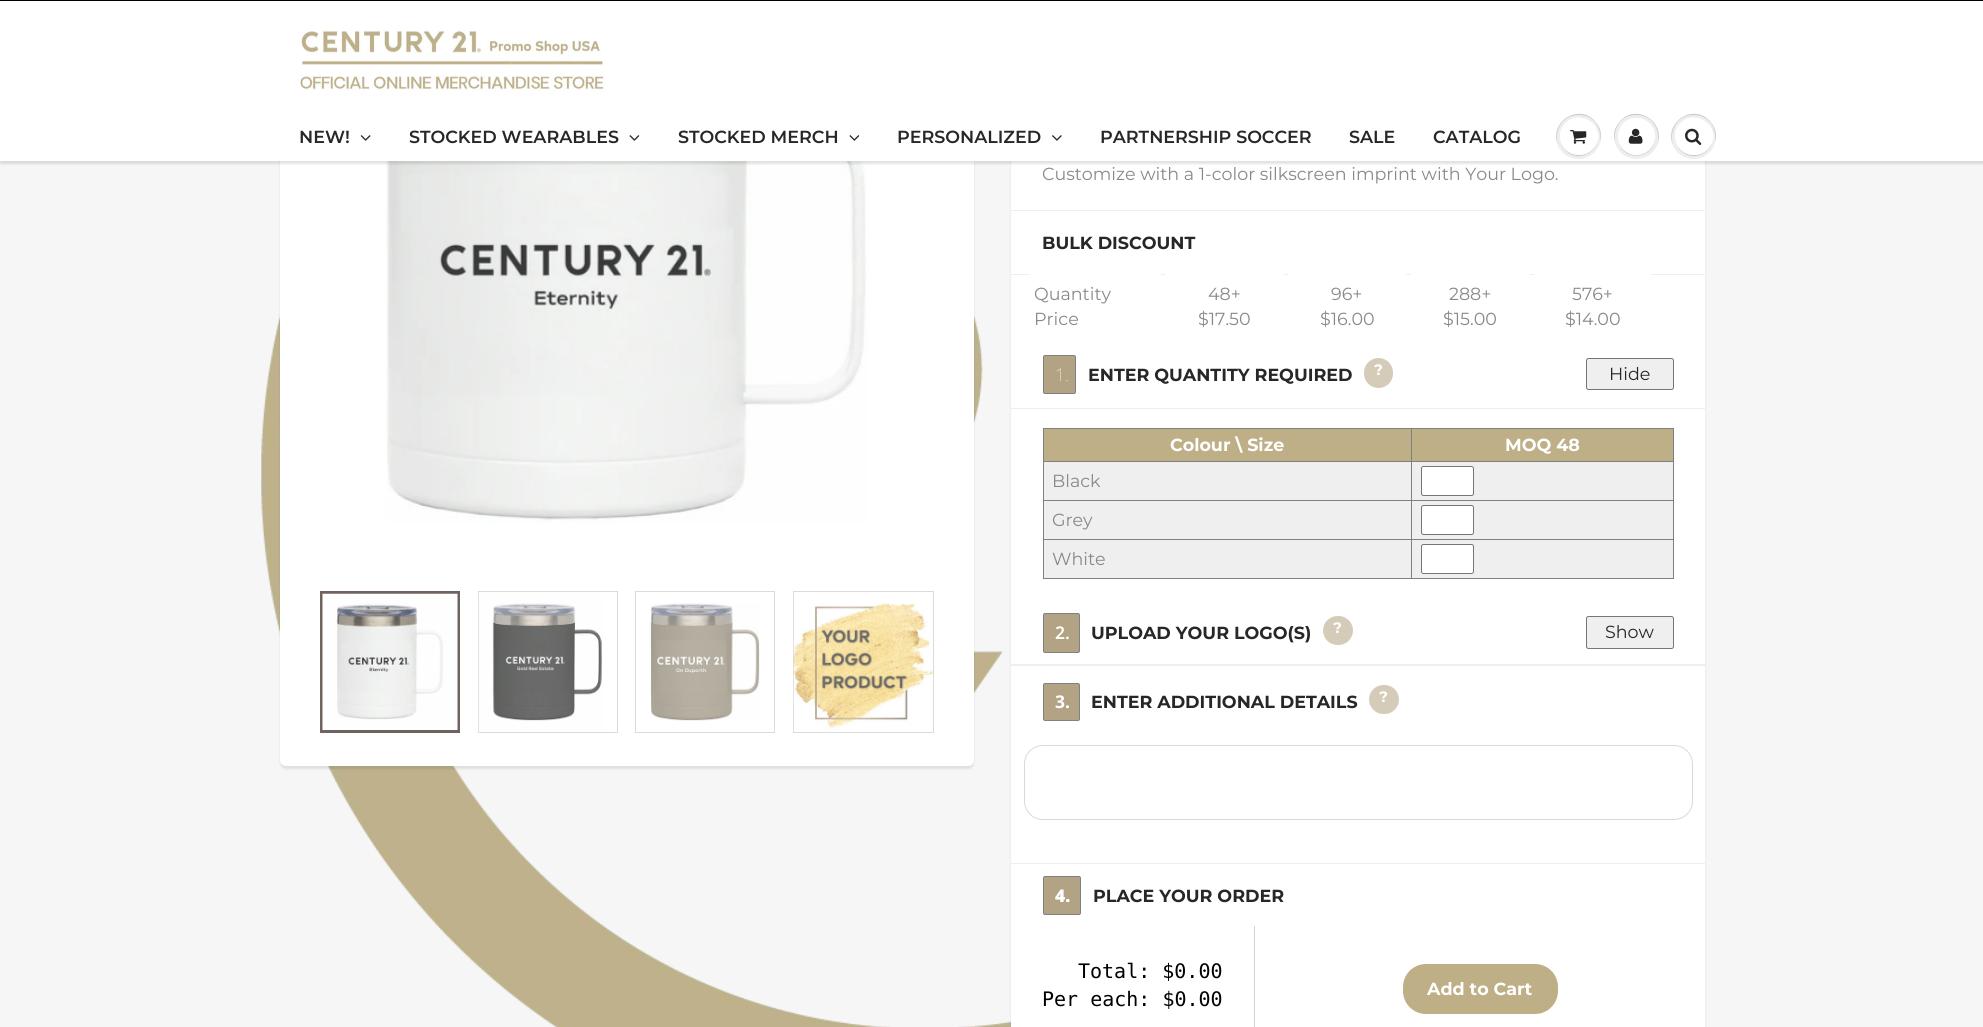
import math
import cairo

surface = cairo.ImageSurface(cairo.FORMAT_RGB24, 1983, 1027)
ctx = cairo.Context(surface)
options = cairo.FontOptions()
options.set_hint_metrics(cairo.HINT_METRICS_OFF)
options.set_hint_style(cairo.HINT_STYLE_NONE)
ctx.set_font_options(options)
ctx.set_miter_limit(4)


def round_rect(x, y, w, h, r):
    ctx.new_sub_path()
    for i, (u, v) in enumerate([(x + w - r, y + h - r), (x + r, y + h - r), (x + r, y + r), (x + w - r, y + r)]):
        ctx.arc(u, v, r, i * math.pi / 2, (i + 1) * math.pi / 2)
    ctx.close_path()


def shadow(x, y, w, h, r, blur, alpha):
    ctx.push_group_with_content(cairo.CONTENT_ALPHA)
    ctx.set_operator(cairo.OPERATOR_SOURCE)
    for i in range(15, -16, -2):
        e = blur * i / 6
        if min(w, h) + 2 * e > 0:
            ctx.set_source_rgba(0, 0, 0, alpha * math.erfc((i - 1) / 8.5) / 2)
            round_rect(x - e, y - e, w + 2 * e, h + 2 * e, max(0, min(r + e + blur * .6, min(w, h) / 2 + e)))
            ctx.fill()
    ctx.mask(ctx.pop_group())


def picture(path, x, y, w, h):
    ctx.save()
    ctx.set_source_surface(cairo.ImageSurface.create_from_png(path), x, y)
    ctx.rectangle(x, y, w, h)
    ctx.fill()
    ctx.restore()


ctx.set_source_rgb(0.961, 0.961, 0.961)
ctx.paint()
picture("img8.png", 261, 314, 750, 713)
ctx.set_source_rgb(0.043, 0.098, 0.11)
shadow(280, -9, 694, 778, 6, 1, 0.1)
ctx.set_source_rgb(1, 1, 1)
round_rect(280, -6, 694, 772, 6)
ctx.fill()
picture("img9.png", 386, 161, 481, 362)
ctx.set_source_rgb(0.043, 0.098, 0.11)
shadow(1011, -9, 694, 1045, 6, 1, 0.1)
ctx.set_source_rgb(1, 1, 1)
ctx.rectangle(1011, 161, 694, 866)
ctx.fill()
ctx.set_source_rgb(0.043, 0.098, 0.11)
shadow(0, 3, 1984, 161, 0, 1, 0.12)
ctx.set_source_rgb(1, 1, 1)
ctx.rectangle(0, 1, 1983, 160)
ctx.fill()
ctx.set_source_rgb(0, 0, 0)
ctx.rectangle(0, 0, 1983, 1)
ctx.fill()
picture("img1.png", 300, 30, 306, 61)
ctx.select_font_face("Montserrat SemiBold")
ctx.set_font_size(17.5)
ctx.set_source_rgb(0.157, 0.153, 0.153)
ctx.move_to(299, 143)
ctx.show_text("NEW!")
picture("img2.png", 360, 135, 11, 6)
ctx.move_to(409, 143)
ctx.show_text("STOCKED WEARABLES")
picture("img3.png", 629, 135, 11, 6)
ctx.move_to(678, 143)
ctx.show_text("STOCKED MERCH")
picture("img3.png", 849, 135, 11, 6)
ctx.move_to(897, 143)
ctx.show_text("PERSONALIZED")
picture("img4.png", 1052, 135, 10, 6)
ctx.move_to(1100, 143)
ctx.show_text("PARTNERSHIP SOCCER")
ctx.move_to(1349, 143)
ctx.show_text("SALE")
ctx.move_to(1433, 143)
ctx.show_text("CATALOG")
ctx.set_source_rgb(0.929, 0.937, 0.937)
ctx.new_path()
ctx.arc(1578.5, 136.5, 22.5, 0, 2 * math.pi)
ctx.fill()
ctx.set_source_rgb(0.788, 0.796, 0.796)
ctx.new_path()
ctx.move_to(1579, 115)
ctx.curve_to(1595, 115, 1602, 129, 1600, 142)
ctx.curve_to(1602, 136, 1601, 129, 1597, 124)
ctx.curve_to(1582, 101, 1548, 121, 1558, 145)
ctx.curve_to(1554, 132, 1561, 115, 1579, 115)
ctx.close_path()
ctx.fill()
ctx.new_path()
ctx.move_to(1560, 137)
ctx.curve_to(1560, 142, 1562, 147, 1565.5, 150.5)
ctx.curve_to(1580, 165, 1604.5, 149, 1596.5, 130)
ctx.curve_to(1602.5, 148.5, 1580, 163.5, 1565.5, 149.5)
ctx.curve_to(1562, 146.5, 1560, 141.5, 1560, 137)
ctx.close_path()
ctx.fill()
ctx.set_source_rgb(1, 1, 1)
round_rect(1560, 118, 38, 37, 18.5)
ctx.fill()
ctx.new_path()
ctx.move_to(1579, 119)
ctx.curve_to(1595, 119, 1601, 136, 1595, 147)
ctx.curve_to(1609, 127, 1577, 105, 1563, 126)
ctx.curve_to(1560, 130, 1559, 136, 1561, 141)
ctx.curve_to(1559, 131, 1565, 119, 1579, 119)
ctx.close_path()
ctx.fill()
picture("img5.png", 1570, 130, 17, 14)
ctx.set_source_rgb(0.929, 0.937, 0.937)
ctx.arc(1636.5, 136.5, 22.5, 0, 2 * math.pi)
ctx.fill()
ctx.set_source_rgb(0.788, 0.796, 0.796)
ctx.new_path()
ctx.move_to(1636, 115)
ctx.curve_to(1654, 115, 1661, 132, 1657, 145)
ctx.curve_to(1667, 121, 1633, 101, 1618, 124)
ctx.curve_to(1614, 129, 1613, 136, 1615, 142)
ctx.curve_to(1613, 129, 1620, 115, 1636, 115)
ctx.close_path()
ctx.fill()
ctx.new_path()
ctx.move_to(1655, 137)
ctx.curve_to(1654.5, 156.5, 1627.5, 161.5, 1619, 144)
ctx.curve_to(1626.5, 163, 1655.5, 157.5, 1655, 137)
ctx.close_path()
ctx.fill()
ctx.set_source_rgb(1, 1, 1)
ctx.arc(1636.5, 136.5, 18.5, 0, 2 * math.pi)
ctx.fill()
ctx.new_path()
ctx.move_to(1636, 119)
ctx.curve_to(1650, 119, 1656, 130.5, 1654.5, 141)
ctx.curve_to(1659.5, 121.5, 1633, 109, 1621, 126)
ctx.curve_to(1619, 129.5, 1618, 133, 1618, 137)
ctx.curve_to(1618, 128, 1624, 119, 1636, 119)
ctx.close_path()
ctx.fill()
picture("img6.png", 1628, 128, 15, 16)
ctx.set_source_rgb(0.929, 0.937, 0.937)
ctx.arc(1693.5, 136.5, 22.5, 0, 2 * math.pi)
ctx.fill()
ctx.set_source_rgb(0.788, 0.796, 0.796)
ctx.new_path()
ctx.move_to(1694, 115)
ctx.curve_to(1710, 115, 1717, 129, 1715, 142)
ctx.curve_to(1717, 136, 1716, 129, 1712, 124)
ctx.curve_to(1697, 101, 1663, 121, 1673, 145)
ctx.curve_to(1669, 132, 1676, 115, 1694, 115)
ctx.close_path()
ctx.fill()
ctx.new_path()
ctx.move_to(1675, 137)
ctx.curve_to(1675, 142, 1677, 147, 1680.5, 150.5)
ctx.curve_to(1695, 165, 1719.5, 149, 1711.5, 130)
ctx.curve_to(1717.5, 148.5, 1695, 163.5, 1680.5, 149.5)
ctx.curve_to(1677, 146.5, 1675, 141.5, 1675, 137)
ctx.close_path()
ctx.fill()
ctx.set_source_rgb(1, 1, 1)
round_rect(1675, 118, 38, 37, 18.5)
ctx.fill()
ctx.new_path()
ctx.move_to(1694, 119)
ctx.curve_to(1710, 119, 1716, 136, 1710, 147)
ctx.curve_to(1724, 127, 1692, 105, 1678, 126)
ctx.curve_to(1675, 130, 1674, 136, 1676, 141)
ctx.curve_to(1674, 131, 1680, 119, 1694, 119)
ctx.close_path()
ctx.fill()
picture("img7.png", 1685, 128, 17, 17)
ctx.rectangle(321.5, 592.5, 137, 139)
ctx.set_source_rgb(0.439, 0.388, 0.365)
ctx.set_line_width(3)
ctx.stroke()
picture("img10.png", 322, 593, 136, 137)
ctx.rectangle(478.5, 591.5, 139, 141)
ctx.set_source_rgb(0.859, 0.859, 0.859)
ctx.set_line_width(1)
ctx.stroke()
picture("img11.png", 478, 593, 125, 138)
ctx.rectangle(635.5, 591.5, 139, 141)
ctx.stroke()
picture("img12.png", 650, 603, 110, 118)
ctx.rectangle(793.5, 591.5, 140, 141)
ctx.stroke()
picture("img13.png", 793, 593, 140, 138)
ctx.select_font_face("Montserrat")
ctx.set_source_rgb(0.537, 0.537, 0.537)
ctx.move_to(1042, 180)
ctx.show_text("Customize with a 1-color silkscreen imprint with Your Logo.")
ctx.set_source_rgb(0.937, 0.937, 0.937)
ctx.rectangle(1011, 210, 694, 1)
ctx.fill()
ctx.select_font_face("Montserrat", cairo.FONT_SLANT_NORMAL, cairo.FONT_WEIGHT_BOLD)
ctx.set_source_rgb(0.157, 0.153, 0.153)
ctx.move_to(1042, 249)
ctx.show_text("BULK DISCOUNT")
ctx.set_source_rgb(0.937, 0.937, 0.937)
ctx.rectangle(1011, 274, 694, 1)
ctx.fill()
ctx.set_source_rgb(1, 1, 1)
ctx.rectangle(1030, 274, 131, 1)
ctx.fill()
ctx.select_font_face("Montserrat")
ctx.set_source_rgb(0.537, 0.537, 0.537)
ctx.move_to(1034, 300)
ctx.show_text("Quantity")
ctx.move_to(1034, 325)
ctx.show_text("Price")
ctx.set_source_rgb(1, 1, 1)
ctx.rectangle(1165, 274, 119, 1)
ctx.fill()
ctx.set_source_rgb(0.537, 0.537, 0.537)
ctx.move_to(1208, 300)
ctx.show_text("48+")
ctx.move_to(1198, 325)
ctx.show_text("$17.50")
ctx.set_source_rgb(1, 1, 1)
ctx.rectangle(1288, 274, 118, 1)
ctx.fill()
ctx.set_source_rgb(0.537, 0.537, 0.537)
ctx.move_to(1331, 300)
ctx.show_text("96+")
ctx.move_to(1320, 325)
ctx.show_text("$16.00")
ctx.set_source_rgb(1, 1, 1)
ctx.rectangle(1411, 274, 118, 1)
ctx.fill()
ctx.set_source_rgb(0.537, 0.537, 0.537)
ctx.move_to(1449, 300)
ctx.show_text("288+")
ctx.move_to(1443, 325)
ctx.show_text("$15.00")
ctx.set_source_rgb(1, 1, 1)
ctx.rectangle(1534, 274, 117, 1)
ctx.fill()
ctx.set_source_rgb(0.537, 0.537, 0.537)
ctx.move_to(1572, 300)
ctx.show_text("576+")
ctx.move_to(1565, 325)
ctx.show_text("$14.00")
ctx.set_source_rgb(0.698, 0.639, 0.518)
round_rect(1043.5, 355.5, 32, 38, 1.5)
ctx.fill_preserve()
ctx.set_source_rgb(0.502, 0.502, 0.502)
ctx.stroke()
ctx.select_font_face("Noto Sans Thin")
ctx.set_source_rgb(1, 1, 1)
ctx.move_to(1055, 381)
ctx.show_text("1.")
ctx.select_font_face("Montserrat", cairo.FONT_SLANT_NORMAL, cairo.FONT_WEIGHT_BOLD)
ctx.set_source_rgb(0.157, 0.153, 0.153)
ctx.move_to(1088, 381)
ctx.show_text("ENTER QUANTITY REQUIRED")
ctx.set_source_rgb(0.831, 0.796, 0.722)
round_rect(1364, 358, 29, 30, 14.5)
ctx.fill()
ctx.set_font_size(15)
ctx.set_source_rgb(1, 1, 1)
ctx.move_to(1374, 375)
ctx.show_text("?")
ctx.set_source_rgb(0.937, 0.937, 0.937)
round_rect(1586.5, 358.5, 87, 31, 2)
ctx.fill_preserve()
ctx.set_source_rgb(0.463, 0.463, 0.463)
ctx.stroke()
ctx.select_font_face("Montserrat")
ctx.set_font_size(17.5)
ctx.set_source_rgb(0.157, 0.153, 0.153)
ctx.move_to(1609, 380)
ctx.show_text("Hide")
ctx.set_source_rgb(0.937, 0.937, 0.937)
ctx.rectangle(1011, 408, 694, 1)
ctx.fill()
ctx.set_source_rgb(0.745, 0.686, 0.529)
ctx.rectangle(1044, 429, 629, 32)
ctx.fill()
ctx.set_source_rgb(0.502, 0.502, 0.502)
ctx.rectangle(1411, 428, 263, 1)
ctx.fill()
ctx.set_source_rgb(0.937, 0.937, 0.937)
ctx.rectangle(1044, 462, 629, 38)
ctx.fill()
ctx.set_source_rgb(0.502, 0.502, 0.502)
ctx.rectangle(1411, 461, 263, 1)
ctx.fill()
ctx.rectangle(1411, 500, 263, 1)
ctx.fill()
ctx.set_source_rgb(0.937, 0.937, 0.937)
ctx.rectangle(1044, 501, 629, 38)
ctx.fill()
ctx.set_source_rgb(0.502, 0.502, 0.502)
ctx.rectangle(1411, 539, 263, 1)
ctx.fill()
ctx.set_source_rgb(0.937, 0.937, 0.937)
ctx.rectangle(1044, 540, 629, 38)
ctx.fill()
ctx.set_source_rgb(0.502, 0.502, 0.502)
ctx.rectangle(1673, 539, 1, 40)
ctx.fill()
ctx.rectangle(1411, 578, 263, 1)
ctx.fill()
ctx.rectangle(1411, 539, 1, 40)
ctx.fill()
ctx.rectangle(1043, 539, 370, 1)
ctx.fill()
ctx.rectangle(1411, 500, 1, 40)
ctx.fill()
ctx.rectangle(1043, 500, 370, 1)
ctx.fill()
ctx.rectangle(1411, 461, 1, 40)
ctx.fill()
ctx.rectangle(1043, 461, 370, 1)
ctx.fill()
ctx.rectangle(1411, 428, 1, 35)
ctx.fill()
ctx.rectangle(1043, 428, 370, 1)
ctx.fill()
ctx.rectangle(1043, 578, 370, 1)
ctx.fill()
ctx.rectangle(1043, 539, 1, 40)
ctx.fill()
ctx.rectangle(1043, 500, 1, 40)
ctx.fill()
ctx.rectangle(1043, 461, 1, 40)
ctx.fill()
ctx.rectangle(1043, 428, 1, 35)
ctx.fill()
ctx.select_font_face("Montserrat", cairo.FONT_SLANT_NORMAL, cairo.FONT_WEIGHT_BOLD)
ctx.set_source_rgb(1, 1, 1)
ctx.move_to(1170, 451)
ctx.show_text("Colour \\ Size")
ctx.set_source_rgb(0.502, 0.502, 0.502)
ctx.rectangle(1673, 500, 1, 40)
ctx.fill()
ctx.rectangle(1673, 461, 1, 40)
ctx.fill()
ctx.rectangle(1673, 428, 1, 35)
ctx.fill()
ctx.set_source_rgb(1, 1, 1)
ctx.move_to(1505, 451)
ctx.show_text("MOQ 48")
ctx.select_font_face("Montserrat")
ctx.set_source_rgb(0.537, 0.537, 0.537)
ctx.move_to(1052, 487)
ctx.show_text("Black")
ctx.set_source_rgb(1, 1, 1)
round_rect(1421.5, 466.5, 52, 29, 2)
ctx.fill_preserve()
ctx.set_source_rgb(0.463, 0.463, 0.463)
ctx.stroke()
ctx.set_source_rgb(0.537, 0.537, 0.537)
ctx.move_to(1052, 526)
ctx.show_text("Grey")
ctx.set_source_rgb(1, 1, 1)
round_rect(1421.5, 505.5, 52, 29, 2)
ctx.fill_preserve()
ctx.set_source_rgb(0.463, 0.463, 0.463)
ctx.stroke()
ctx.set_source_rgb(0.537, 0.537, 0.537)
ctx.move_to(1052, 565)
ctx.show_text("White")
ctx.set_source_rgb(1, 1, 1)
round_rect(1421.5, 544.5, 52, 29, 2)
ctx.fill_preserve()
ctx.set_source_rgb(0.463, 0.463, 0.463)
ctx.stroke()
ctx.set_source_rgb(0.937, 0.937, 0.937)
ctx.rectangle(1011, 664, 694, 2)
ctx.fill()
ctx.set_source_rgb(0.698, 0.639, 0.518)
round_rect(1043.5, 613.5, 36, 39, 1.5)
ctx.fill_preserve()
ctx.set_source_rgb(0.502, 0.502, 0.502)
ctx.stroke()
ctx.select_font_face("Noto Sans SemiBold")
ctx.set_source_rgb(1, 1, 1)
ctx.move_to(1055, 639)
ctx.show_text("2.")
ctx.select_font_face("Montserrat", cairo.FONT_SLANT_NORMAL, cairo.FONT_WEIGHT_BOLD)
ctx.set_source_rgb(0.157, 0.153, 0.153)
ctx.move_to(1091, 639)
ctx.show_text("UPLOAD YOUR LOGO(S)")
ctx.set_source_rgb(0.831, 0.796, 0.722)
round_rect(1323, 616, 30, 29, 14.5)
ctx.fill()
ctx.set_font_size(15)
ctx.set_source_rgb(1, 1, 1)
ctx.move_to(1333, 633)
ctx.show_text("?")
ctx.set_source_rgb(0.937, 0.937, 0.937)
round_rect(1586.5, 616.5, 87, 32, 2)
ctx.fill_preserve()
ctx.set_source_rgb(0.463, 0.463, 0.463)
ctx.stroke()
ctx.select_font_face("Montserrat")
ctx.set_font_size(17.5)
ctx.set_source_rgb(0.157, 0.153, 0.153)
ctx.move_to(1605, 638)
ctx.show_text("Show")
ctx.set_source_rgb(0.698, 0.639, 0.518)
round_rect(1043.5, 683.5, 36, 37, 1.5)
ctx.fill_preserve()
ctx.set_source_rgb(0.502, 0.502, 0.502)
ctx.stroke()
ctx.select_font_face("Noto Sans", cairo.FONT_SLANT_NORMAL, cairo.FONT_WEIGHT_BOLD)
ctx.set_source_rgb(1, 1, 1)
ctx.move_to(1055, 708)
ctx.show_text("3.")
ctx.select_font_face("Montserrat", cairo.FONT_SLANT_NORMAL, cairo.FONT_WEIGHT_BOLD)
ctx.set_source_rgb(0.157, 0.153, 0.153)
ctx.move_to(1091, 708)
ctx.show_text("ENTER ADDITIONAL DETAILS")
ctx.set_source_rgb(0.831, 0.796, 0.722)
round_rect(1369, 685, 30, 29, 14.5)
ctx.fill()
ctx.set_font_size(15)
ctx.set_source_rgb(1, 1, 1)
ctx.move_to(1379, 702)
ctx.show_text("?")
round_rect(1024.5, 745.5, 668, 74, 18.5)
ctx.set_source_rgb(0.843, 0.859, 0.859)
ctx.stroke()
ctx.set_source_rgb(0.937, 0.937, 0.937)
ctx.rectangle(1011, 863, 694, 1)
ctx.fill()
ctx.set_source_rgb(0.698, 0.639, 0.518)
round_rect(1043.5, 876.5, 37, 38, 1.5)
ctx.fill_preserve()
ctx.set_source_rgb(0.502, 0.502, 0.502)
ctx.stroke()
ctx.select_font_face("Noto Sans Black")
ctx.set_font_size(17.5)
ctx.set_source_rgb(1, 1, 1)
ctx.move_to(1055, 902)
ctx.show_text("4.")
ctx.select_font_face("Montserrat", cairo.FONT_SLANT_NORMAL, cairo.FONT_WEIGHT_BOLD)
ctx.set_source_rgb(0.157, 0.153, 0.153)
ctx.move_to(1093, 902)
ctx.show_text("PLACE YOUR ORDER")
ctx.set_source_rgb(0.827, 0.827, 0.827)
ctx.rectangle(1254, 926, 1, 101)
ctx.fill()
ctx.select_font_face("DejaVu Sans Mono")
ctx.set_font_size(20)
ctx.set_source_rgb(0, 0, 0)
ctx.move_to(1078, 978)
ctx.show_text("Total: $0.00")
ctx.move_to(1042, 1006)
ctx.show_text("Per each: $0.00")
ctx.set_source_rgb(0.745, 0.686, 0.529)
round_rect(1403, 964, 155, 50, 23)
ctx.fill()
ctx.select_font_face("Montserrat", cairo.FONT_SLANT_NORMAL, cairo.FONT_WEIGHT_BOLD)
ctx.set_font_size(17.5)
ctx.set_source_rgb(1, 1, 1)
ctx.move_to(1427, 995)
ctx.show_text("Add to Cart")
surface.write_to_png("page.png")
